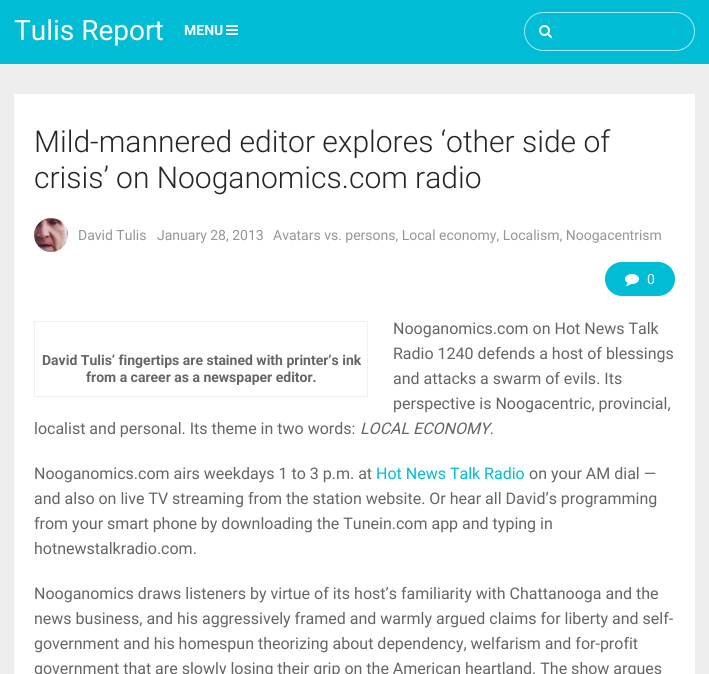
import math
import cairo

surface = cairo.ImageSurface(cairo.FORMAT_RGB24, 709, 674)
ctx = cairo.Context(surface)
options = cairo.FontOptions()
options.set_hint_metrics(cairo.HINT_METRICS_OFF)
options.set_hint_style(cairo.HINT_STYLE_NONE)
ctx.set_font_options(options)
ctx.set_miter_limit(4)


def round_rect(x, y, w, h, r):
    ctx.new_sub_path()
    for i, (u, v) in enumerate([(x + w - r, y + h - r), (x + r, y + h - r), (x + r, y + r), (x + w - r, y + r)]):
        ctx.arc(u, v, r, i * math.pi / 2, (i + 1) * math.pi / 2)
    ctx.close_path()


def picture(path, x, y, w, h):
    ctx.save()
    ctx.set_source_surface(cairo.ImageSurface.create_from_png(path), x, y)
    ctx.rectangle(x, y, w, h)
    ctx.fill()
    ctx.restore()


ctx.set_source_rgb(0.933, 0.933, 0.933)
ctx.paint()
ctx.set_source_rgb(0, 0.737, 0.831)
ctx.rectangle(0, 0, 709, 64)
ctx.fill()
ctx.select_font_face("Roboto")
ctx.set_font_size(28)
ctx.set_source_rgb(1, 1, 1)
ctx.move_to(14, 40)
ctx.show_text("Tulis Report")
ctx.select_font_face("Roboto", cairo.FONT_SLANT_NORMAL, cairo.FONT_WEIGHT_BOLD)
ctx.set_font_size(14)
ctx.move_to(184, 35)
ctx.show_text("MENU")
picture("img1.png", 226, 25, 12, 10)
round_rect(524.5, 12.5, 170, 38, 19)
ctx.set_source_rgb(0.651, 0.91, 0.941)
ctx.set_line_width(1)
ctx.stroke()
picture("img2.png", 539, 25, 13, 13)
ctx.set_source_rgb(1, 1, 1)
ctx.rectangle(14, 94, 681, 580)
ctx.fill()
ctx.select_font_face("Roboto Light")
ctx.set_font_size(30)
ctx.set_source_rgb(0.145, 0.145, 0.145)
ctx.move_to(34, 152)
ctx.show_text("Mild-mannered editor explores ‘other side of")
ctx.move_to(34, 188)
ctx.show_text("crisis’ on Nooganomics.com radio")
picture("img3.png", 34, 218, 34, 34)
ctx.select_font_face("Roboto")
ctx.set_font_size(14)
ctx.set_source_rgb(0.584, 0.584, 0.584)
ctx.move_to(78, 240)
ctx.show_text("David Tulis")
ctx.move_to(157, 240)
ctx.show_text("January 28, 2013")
ctx.move_to(273, 240)
ctx.show_text("Avatars vs. persons, Local economy, Localism, Noogacentrism")
ctx.set_source_rgb(0, 0.737, 0.831)
round_rect(605, 262, 70, 34, 17)
ctx.fill()
picture("img4.png", 625, 274, 14, 12)
ctx.set_source_rgb(1, 1, 1)
ctx.move_to(647, 284)
ctx.show_text("0")
ctx.set_font_size(16)
ctx.set_source_rgb(0.396, 0.396, 0.396)
ctx.move_to(393, 334)
ctx.show_text("Nooganomics.com on Hot News Talk")
ctx.move_to(393, 359)
ctx.show_text("Radio 1240 defends a host of blessings")
ctx.move_to(393, 384)
ctx.show_text("and attacks a swarm of evils. Its")
ctx.move_to(393, 409)
ctx.show_text("perspective is Noogacentric, provincial,")
ctx.move_to(34, 434)
ctx.show_text("localist and personal. Its theme in two words:")
ctx.select_font_face("Roboto", cairo.FONT_SLANT_ITALIC)
ctx.move_to(360, 434)
ctx.show_text("LOCAL ECONOMY.")
ctx.rectangle(34.5, 321.5, 333, 75)
ctx.set_source_rgb(0.941, 0.941, 0.941)
ctx.stroke()
ctx.select_font_face("Roboto", cairo.FONT_SLANT_NORMAL, cairo.FONT_WEIGHT_BOLD)
ctx.set_font_size(14)
ctx.set_source_rgb(0.396, 0.396, 0.396)
ctx.move_to(42, 365)
ctx.show_text("David Tulis’ fingertips are stained with printer’s ink")
ctx.move_to(86, 382)
ctx.show_text("from a career as a newspaper editor.")
ctx.select_font_face("Roboto")
ctx.set_font_size(16)
ctx.move_to(34, 479)
ctx.show_text("Nooganomics.com airs weekdays 1 to 3 p.m. at")
ctx.set_source_rgb(0, 0.737, 0.831)
ctx.move_to(376, 479)
ctx.show_text("Hot News Talk Radio")
ctx.set_source_rgb(0.396, 0.396, 0.396)
ctx.move_to(529, 479)
ctx.show_text("on your AM dial —")
ctx.move_to(34, 504)
ctx.show_text("and also on live TV streaming from the station website. Or hear all David’s programming")
ctx.move_to(34, 529)
ctx.show_text("from your smart phone by downloading the Tunein.com app and typing in")
ctx.move_to(34, 554)
ctx.show_text("hotnewstalkradio.com.")
ctx.move_to(34, 599)
ctx.show_text("Nooganomics draws listeners by virtue of its host’s familiarity with Chattanooga and the")
ctx.move_to(34, 624)
ctx.show_text("news business, and his aggressively framed and warmly argued claims for liberty and self-")
ctx.move_to(34, 649)
ctx.show_text("government and his homespun theorizing about dependency, welfarism and for-profit")
ctx.move_to(34, 674)
ctx.show_text("government that are slowly losing their grip on the American heartland. The show argues")
surface.write_to_png("page.png")
